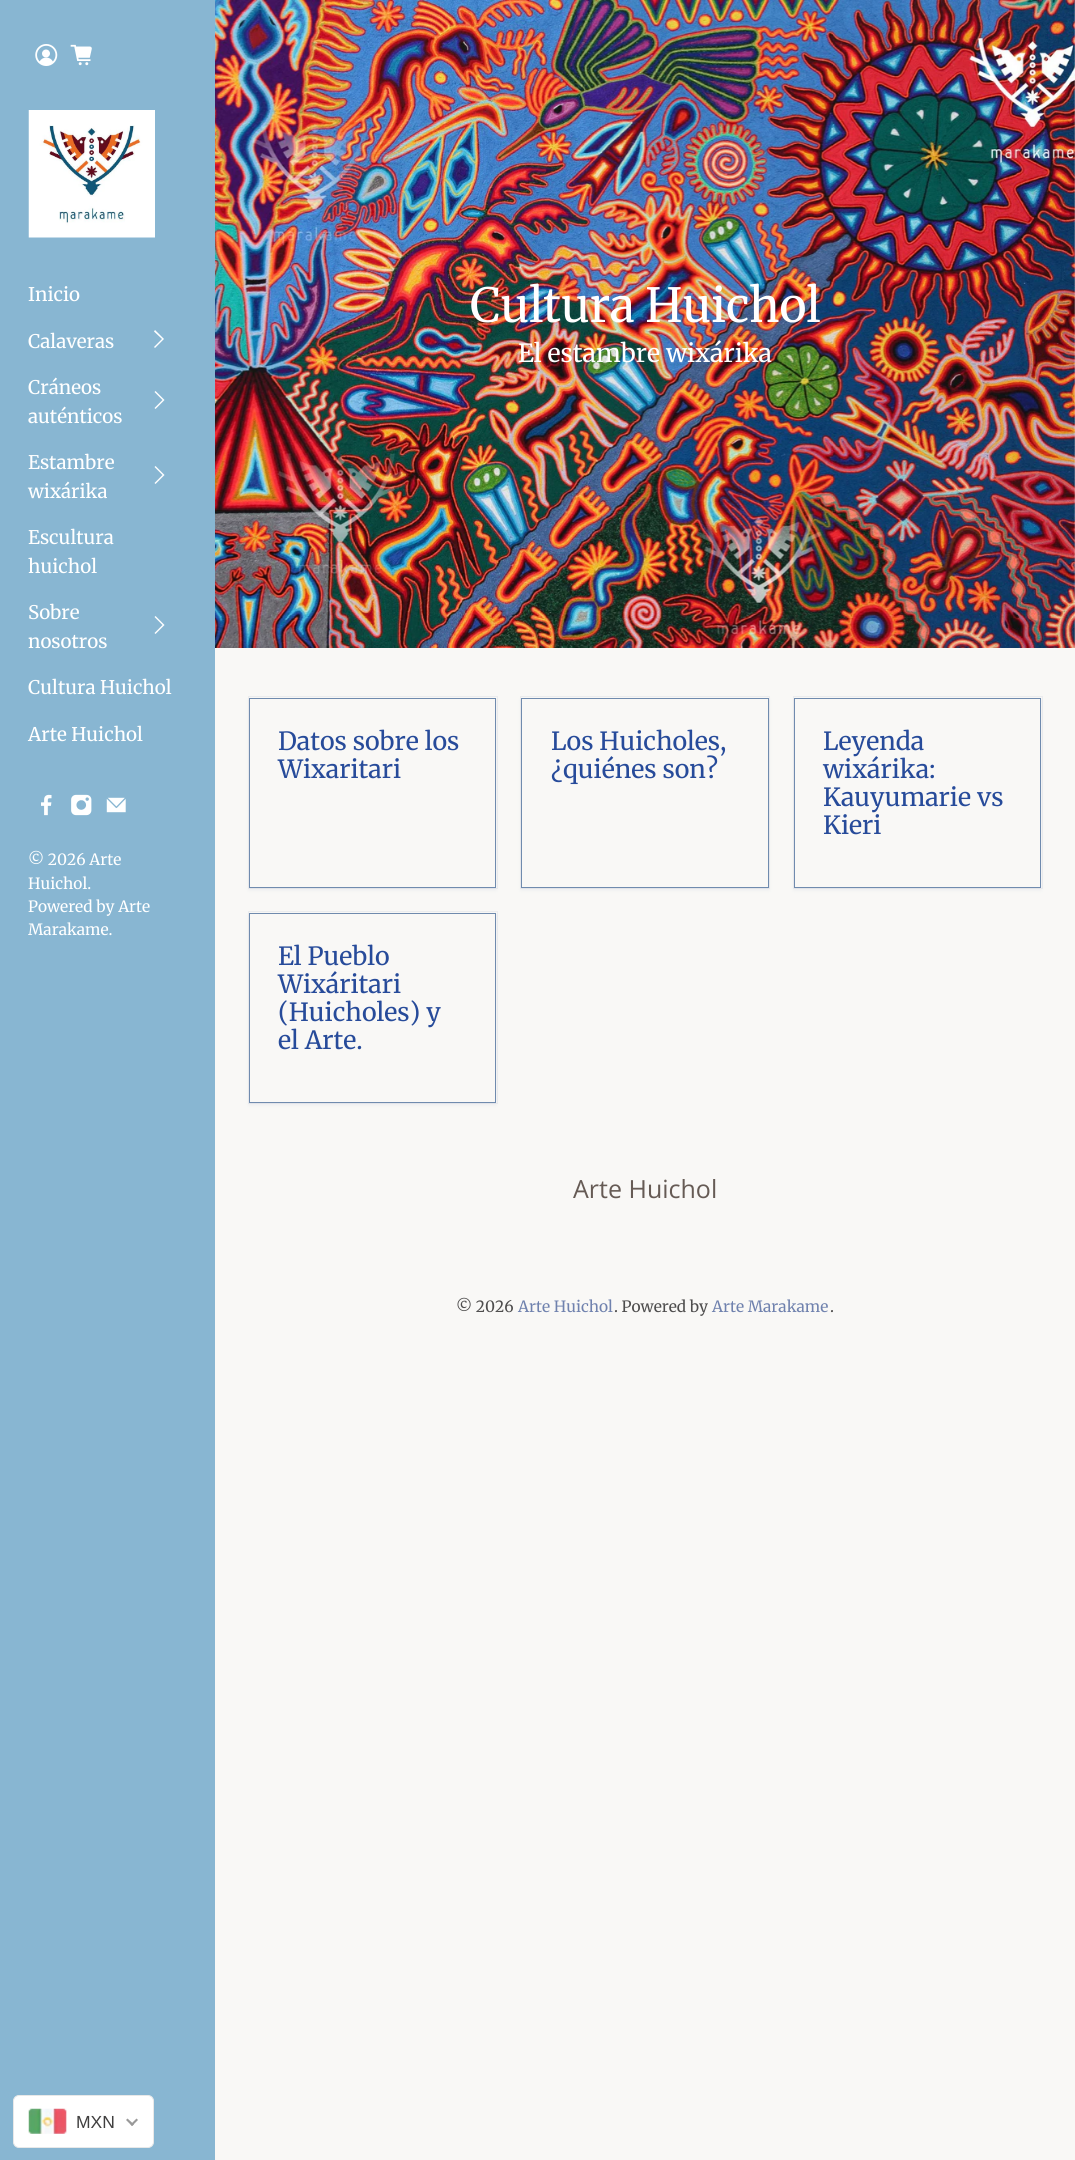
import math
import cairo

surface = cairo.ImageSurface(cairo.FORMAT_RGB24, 1075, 2160)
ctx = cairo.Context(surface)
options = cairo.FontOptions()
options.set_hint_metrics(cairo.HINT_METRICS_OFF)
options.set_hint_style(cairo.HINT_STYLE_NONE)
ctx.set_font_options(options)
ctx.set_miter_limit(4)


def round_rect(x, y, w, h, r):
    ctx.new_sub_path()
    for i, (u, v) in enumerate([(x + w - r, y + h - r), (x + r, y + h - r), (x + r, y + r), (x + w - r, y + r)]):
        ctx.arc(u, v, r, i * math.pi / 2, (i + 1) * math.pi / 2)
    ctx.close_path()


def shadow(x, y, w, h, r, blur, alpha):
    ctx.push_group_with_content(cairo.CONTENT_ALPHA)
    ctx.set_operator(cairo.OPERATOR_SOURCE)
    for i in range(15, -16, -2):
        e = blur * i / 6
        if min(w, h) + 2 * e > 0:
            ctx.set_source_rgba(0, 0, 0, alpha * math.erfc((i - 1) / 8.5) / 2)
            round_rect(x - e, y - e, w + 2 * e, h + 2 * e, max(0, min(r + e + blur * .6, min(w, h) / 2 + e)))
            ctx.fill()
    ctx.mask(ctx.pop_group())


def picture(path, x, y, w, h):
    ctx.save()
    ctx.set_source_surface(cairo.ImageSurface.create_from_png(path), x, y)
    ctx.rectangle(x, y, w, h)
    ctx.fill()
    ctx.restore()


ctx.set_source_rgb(0.976, 0.969, 0.961)
ctx.paint()
ctx.set_source_rgb(0.533, 0.714, 0.824)
ctx.rectangle(0, 0, 215, 2160)
ctx.fill()
picture("img1.png", 35, 44, 23, 22)
picture("img2.png", 70, 44, 22, 22)
picture("img3.png", 28, 110, 127, 128)
ctx.select_font_face("Merriweather")
ctx.set_font_size(18.75)
ctx.set_source_rgb(1, 1, 1)
ctx.move_to(28, 301)
ctx.show_text("Inicio")
ctx.move_to(28, 348)
ctx.show_text("Calaveras")
ctx.new_path()
ctx.move_to(164, 339)
ctx.line_to(155, 348)
ctx.line_to(154, 347)
ctx.line_to(162, 339)
ctx.line_to(154, 331.5)
ctx.line_to(155, 330)
ctx.close_path()
ctx.fill()
ctx.move_to(28, 394)
ctx.show_text("Cráneos")
ctx.new_path()
ctx.move_to(164.5, 400)
ctx.line_to(155.5, 409)
ctx.line_to(154.5, 408)
ctx.line_to(162.5, 400)
ctx.line_to(154.5, 392)
ctx.line_to(155.5, 391)
ctx.close_path()
ctx.fill()
ctx.move_to(28, 423)
ctx.show_text("auténticos")
ctx.move_to(28, 469)
ctx.show_text("Estambre")
ctx.new_path()
ctx.move_to(164.5, 475)
ctx.line_to(155.5, 484)
ctx.line_to(154.5, 483)
ctx.line_to(162.5, 475)
ctx.line_to(154.5, 467)
ctx.line_to(155.5, 466)
ctx.close_path()
ctx.fill()
ctx.move_to(28, 498)
ctx.show_text("wixárika")
ctx.move_to(28, 544)
ctx.show_text("Escultura")
ctx.move_to(28, 573)
ctx.show_text("huichol")
ctx.move_to(28, 619)
ctx.show_text("Sobre")
ctx.new_path()
ctx.move_to(164.5, 625)
ctx.line_to(155.5, 634)
ctx.line_to(154.5, 633)
ctx.line_to(162.5, 625)
ctx.line_to(154.5, 617)
ctx.line_to(155.5, 616)
ctx.close_path()
ctx.fill()
ctx.move_to(28, 648)
ctx.show_text("nosotros")
ctx.move_to(28, 694)
ctx.show_text("Cultura Huichol")
ctx.move_to(28, 741)
ctx.show_text("Arte Huichol")
picture("img4.png", 41, 794, 11, 22)
picture("img5.png", 71, 794, 21, 22)
picture("img6.png", 106, 797, 20, 16)
ctx.set_font_size(15.5)
ctx.move_to(28, 865)
ctx.show_text("© 2026 Arte")
ctx.move_to(28, 889)
ctx.show_text("Huichol.")
ctx.move_to(28, 912)
ctx.show_text("Powered by Arte")
ctx.move_to(28, 935)
ctx.show_text("Marakame.")
picture("img7.png", 215, 0, 860, 648)
ctx.select_font_face("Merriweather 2")
ctx.set_font_size(47)
ctx.move_to(470, 322)
ctx.show_text("Cultura Huichol")
ctx.select_font_face("Merriweather")
ctx.set_font_size(25)
ctx.move_to(518, 362)
ctx.show_text("El estambre wixárika")
ctx.rectangle(248.5, 696.5, 249, 192)
ctx.set_source_rgb(0.922, 0.925, 0.933)
ctx.set_line_width(1)
ctx.stroke()
ctx.set_source_rgb(0.439, 0.545, 0.682)
shadow(249, 700, 247, 190, 0, 2, 0.1)
ctx.set_source_rgb(0.976, 0.969, 0.961)
ctx.rectangle(249.5, 698.5, 246, 189)
ctx.fill_preserve()
ctx.set_source_rgb(0.439, 0.545, 0.682)
ctx.stroke()
ctx.set_source_rgb(0.153, 0.294, 0.604)
ctx.move_to(278, 750)
ctx.show_text("Datos sobre los")
ctx.move_to(278, 778)
ctx.show_text("Wixaritari")
ctx.rectangle(520.5, 696.5, 249, 192)
ctx.set_source_rgb(0.922, 0.925, 0.933)
ctx.stroke()
ctx.set_source_rgb(0.439, 0.545, 0.682)
shadow(521, 700, 248, 190, 0, 2, 0.1)
ctx.set_source_rgb(0.976, 0.969, 0.961)
ctx.rectangle(521.5, 698.5, 247, 189)
ctx.fill_preserve()
ctx.set_source_rgb(0.439, 0.545, 0.682)
ctx.stroke()
ctx.set_source_rgb(0.153, 0.294, 0.604)
ctx.move_to(551, 750)
ctx.show_text("Los Huicholes,")
ctx.move_to(551, 778)
ctx.show_text("¿quiénes son?")
ctx.rectangle(793.5, 696.5, 249, 192)
ctx.set_source_rgb(0.922, 0.925, 0.933)
ctx.stroke()
ctx.set_source_rgb(0.439, 0.545, 0.682)
shadow(794, 700, 247, 190, 0, 2, 0.1)
ctx.set_source_rgb(0.976, 0.969, 0.961)
ctx.rectangle(794.5, 698.5, 246, 189)
ctx.fill_preserve()
ctx.set_source_rgb(0.439, 0.545, 0.682)
ctx.stroke()
ctx.set_source_rgb(0.153, 0.294, 0.604)
ctx.move_to(823, 750)
ctx.show_text("Leyenda")
ctx.move_to(823, 778)
ctx.show_text("wixárika:")
ctx.move_to(823, 806)
ctx.show_text("Kauyumarie vs")
ctx.move_to(823, 834)
ctx.show_text("Kieri")
ctx.rectangle(248.5, 911.5, 249, 192)
ctx.set_source_rgb(0.922, 0.925, 0.933)
ctx.stroke()
ctx.set_source_rgb(0.439, 0.545, 0.682)
shadow(249, 915, 247, 190, 0, 2, 0.1)
ctx.set_source_rgb(0.976, 0.969, 0.961)
ctx.rectangle(249.5, 913.5, 246, 189)
ctx.fill_preserve()
ctx.set_source_rgb(0.439, 0.545, 0.682)
ctx.stroke()
ctx.set_source_rgb(0.153, 0.294, 0.604)
ctx.move_to(278, 965)
ctx.show_text("El Pueblo")
ctx.move_to(278, 993)
ctx.show_text("Wixáritari")
ctx.move_to(278, 1021)
ctx.show_text("(Huicholes) y")
ctx.move_to(278, 1049)
ctx.show_text("el Arte.")
ctx.select_font_face("Open Sans")
ctx.set_source_rgb(0.4, 0.357, 0.333)
ctx.move_to(573, 1198)
ctx.show_text("Arte Huichol")
ctx.select_font_face("Merriweather")
ctx.set_font_size(15.5)
ctx.set_source_rgb(0.306, 0.302, 0.302)
ctx.move_to(456, 1312)
ctx.show_text("© 2026")
ctx.set_source_rgb(0.439, 0.51, 0.682)
ctx.move_to(518, 1312)
ctx.show_text("Arte Huichol")
ctx.set_source_rgb(0.306, 0.302, 0.302)
ctx.move_to(614, 1312)
ctx.show_text(". Powered by")
ctx.set_source_rgb(0.439, 0.51, 0.682)
ctx.move_to(712, 1312)
ctx.show_text("Arte Marakame")
ctx.set_source_rgb(0.306, 0.302, 0.302)
ctx.move_to(830, 1312)
ctx.show_text(".")
ctx.set_source_rgb(1, 1, 1)
round_rect(13.5, 2095.5, 140, 52, 5.5)
ctx.fill_preserve()
ctx.set_source_rgb(0.91, 0.91, 0.91)
ctx.stroke()
picture("img8.png", 28, 2108, 39, 26)
ctx.select_font_face("Liberation Sans")
ctx.set_font_size(17.5)
ctx.set_source_rgb(0.251, 0.247, 0.247)
ctx.move_to(76, 2128)
ctx.show_text("MXN")
ctx.set_source_rgb(0.6, 0.6, 0.6)
ctx.new_path()
ctx.move_to(136.5, 2118.5)
ctx.line_to(138, 2120)
ctx.line_to(132, 2126)
ctx.line_to(130.5, 2124.5)
ctx.close_path()
ctx.fill()
ctx.new_path()
ctx.move_to(127.5, 2118.5)
ctx.line_to(134, 2124.5)
ctx.line_to(132, 2126)
ctx.line_to(126, 2120)
ctx.close_path()
ctx.fill()
surface.write_to_png("page.png")
